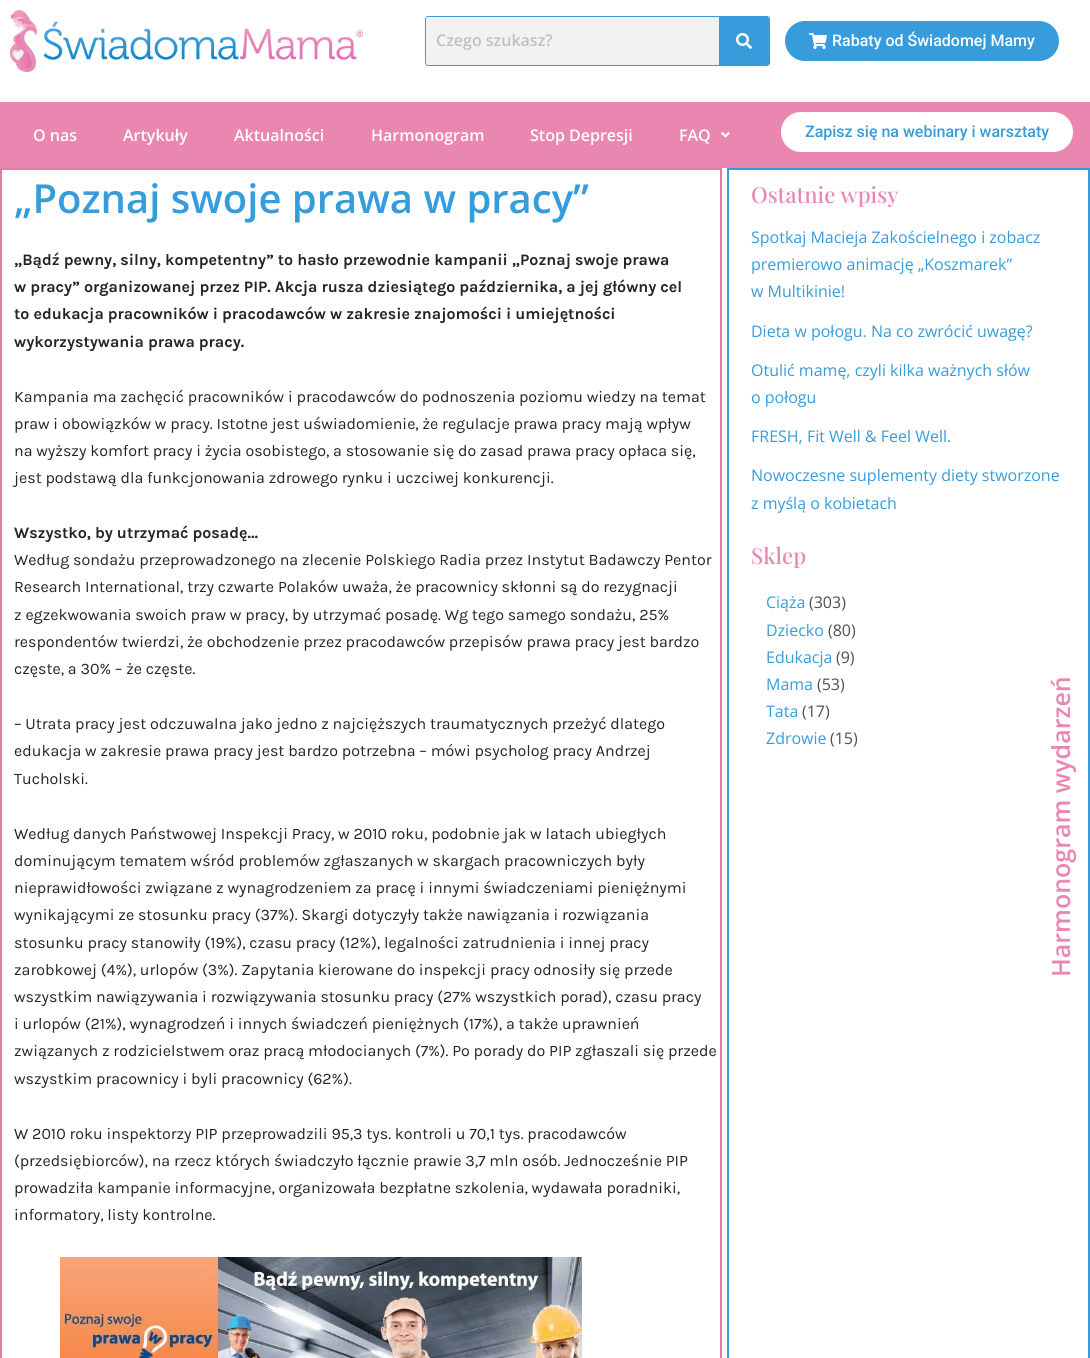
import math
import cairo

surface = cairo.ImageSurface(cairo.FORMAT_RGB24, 1090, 1358)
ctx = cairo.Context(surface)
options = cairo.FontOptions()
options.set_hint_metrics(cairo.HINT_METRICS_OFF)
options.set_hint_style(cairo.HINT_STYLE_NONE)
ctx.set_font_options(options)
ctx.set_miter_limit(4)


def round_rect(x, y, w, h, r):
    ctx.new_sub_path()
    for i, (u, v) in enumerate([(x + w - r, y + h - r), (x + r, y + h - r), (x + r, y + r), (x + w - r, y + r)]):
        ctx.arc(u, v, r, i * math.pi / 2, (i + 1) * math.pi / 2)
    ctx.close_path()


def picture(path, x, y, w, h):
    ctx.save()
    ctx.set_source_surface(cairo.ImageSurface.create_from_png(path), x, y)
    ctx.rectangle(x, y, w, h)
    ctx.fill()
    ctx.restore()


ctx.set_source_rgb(1, 1, 1)
ctx.paint()
picture("img1.png", 10, 10, 353, 62)
round_rect(425.5, 16.5, 344, 49, 2.5)
ctx.set_source_rgb(0.212, 0.612, 0.863)
ctx.set_line_width(1)
ctx.stroke()
ctx.set_source_rgb(0.949, 0.949, 0.949)
ctx.new_path()
ctx.move_to(428, 17)
ctx.line_to(719, 17)
ctx.line_to(719, 65)
ctx.line_to(428, 65)
ctx.curve_to(427, 65, 426, 64, 426, 63)
ctx.line_to(426, 19)
ctx.curve_to(426, 18, 427, 17, 428, 17)
ctx.close_path()
ctx.fill()
ctx.select_font_face("Open Sans SemiBold")
ctx.set_font_size(16)
ctx.set_source_rgb(0.753, 0.753, 0.753)
ctx.move_to(436, 46)
ctx.show_text("Czego szukasz?")
ctx.set_source_rgb(0.212, 0.612, 0.863)
ctx.new_path()
ctx.move_to(719, 17)
ctx.line_to(767, 17)
ctx.curve_to(768, 17, 769, 18, 769, 19)
ctx.line_to(769, 63)
ctx.curve_to(769, 64, 768, 65, 767, 65)
ctx.line_to(719, 65)
ctx.close_path()
ctx.fill()
picture("img2.png", 736, 33, 16, 16)
round_rect(785, 21, 274, 40, 20)
ctx.fill()
picture("img3.png", 809, 33, 18, 16)
ctx.select_font_face("Roboto Medium")
ctx.set_source_rgb(1, 1, 1)
ctx.move_to(832, 46)
ctx.show_text("Rabaty od Świadomej Mamy")
ctx.set_source_rgb(0.914, 0.529, 0.694)
ctx.rectangle(0, 102, 1090, 66)
ctx.fill()
ctx.select_font_face("Open Sans SemiBold")
ctx.set_source_rgb(1, 1, 1)
ctx.move_to(33, 141)
ctx.show_text("O nas")
ctx.move_to(123, 141)
ctx.show_text("Artykuły")
ctx.move_to(234, 141)
ctx.show_text("Aktualności")
ctx.move_to(371, 141)
ctx.show_text("Harmonogram")
ctx.move_to(530, 141)
ctx.show_text("Stop Depresji")
ctx.move_to(679, 141)
ctx.show_text("FAQ")
picture("img4.png", 721, 132, 9, 6)
round_rect(781, 112, 292, 40, 20)
ctx.fill()
ctx.select_font_face("Roboto Medium")
ctx.set_source_rgb(0.212, 0.612, 0.863)
ctx.move_to(805, 137)
ctx.show_text("Zapisz się na webinary i warsztaty")
ctx.rectangle(728, 169, 361, 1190)
ctx.set_source_rgb(0.216, 0.612, 0.859)
ctx.set_line_width(2)
ctx.stroke()
ctx.select_font_face("Open Sans SemiBold")
ctx.set_font_size(25)
ctx.set_source_rgb(0.914, 0.529, 0.694)
ctx.save()
ctx.translate(1070, 977)
ctx.rotate(-90 * math.pi / 180)
ctx.move_to(0, 0)
ctx.show_text("Harmonogram wydarzeń")
ctx.restore()
ctx.rectangle(1, 169, 720, 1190)
ctx.set_source_rgb(0.914, 0.475, 0.663)
ctx.stroke()
ctx.set_font_size(40)
ctx.set_source_rgb(0.212, 0.612, 0.863)
ctx.move_to(14, 213)
ctx.show_text("„Poznaj swoje prawa w pracy”")
ctx.select_font_face("Karla", cairo.FONT_SLANT_NORMAL, cairo.FONT_WEIGHT_BOLD)
ctx.set_font_size(16)
ctx.set_source_rgb(0.129, 0.145, 0.161)
ctx.move_to(14, 265)
ctx.show_text("„Bądź pewny, silny, kompetentny” to hasło przewodnie kampanii „Poznaj swoje prawa")
ctx.move_to(14, 292)
ctx.show_text("w pracy” organizowanej przez PIP. Akcja rusza dziesiątego października, a jej główny cel")
ctx.move_to(14, 319)
ctx.show_text("to edukacja pracowników i pracodawców w zakresie znajomości i umiejętności")
ctx.move_to(14, 347)
ctx.show_text("wykorzystywania prawa pracy.")
ctx.select_font_face("Karla")
ctx.move_to(14, 402)
ctx.show_text("Kampania ma zachęcić pracowników i pracodawców do podnoszenia poziomu wiedzy na temat")
ctx.move_to(14, 429)
ctx.show_text("praw i obowiązków w pracy. Istotne jest uświadomienie, że regulacje prawa pracy mają wpływ")
ctx.move_to(14, 456)
ctx.show_text("na wyższy komfort pracy i życia osobistego, a stosowanie się do zasad prawa pracy opłaca się,")
ctx.move_to(14, 483)
ctx.show_text("jest podstawą dla funkcjonowania zdrowego rynku i uczciwej konkurencji.")
ctx.select_font_face("Karla", cairo.FONT_SLANT_NORMAL, cairo.FONT_WEIGHT_BOLD)
ctx.move_to(14, 538)
ctx.show_text("Wszystko, by utrzymać posadę…")
ctx.select_font_face("Karla")
ctx.move_to(14, 565)
ctx.show_text("Według sondażu przeprowadzonego na zlecenie Polskiego Radia przez Instytut Badawczy Pentor")
ctx.move_to(14, 592)
ctx.show_text("Research International, trzy czwarte Polaków uważa, że pracownicy skłonni są do rezygnacji")
ctx.move_to(14, 620)
ctx.show_text("z egzekwowania swoich praw w pracy, by utrzymać posadę. Wg tego samego sondażu, 25%")
ctx.move_to(14, 647)
ctx.show_text("respondentów twierdzi, że obchodzenie przez pracodawców przepisów prawa pracy jest bardzo")
ctx.move_to(14, 674)
ctx.show_text("częste, a 30% – że częste.")
ctx.move_to(14, 729)
ctx.show_text("– Utrata pracy jest odczuwalna jako jedno z najcięższych traumatycznych przeżyć dlatego")
ctx.move_to(14, 756)
ctx.show_text("edukacja w zakresie prawa pracy jest bardzo potrzebna – mówi psycholog pracy Andrzej")
ctx.move_to(14, 784)
ctx.show_text("Tucholski.")
ctx.move_to(14, 839)
ctx.show_text("Według danych Państwowej Inspekcji Pracy, w 2010 roku, podobnie jak w latach ubiegłych")
ctx.move_to(14, 866)
ctx.show_text("dominującym tematem wśród problemów zgłaszanych w skargach pracowniczych były")
ctx.move_to(14, 893)
ctx.show_text("nieprawidłowości związane z wynagrodzeniem za pracę i innymi świadczeniami pieniężnymi")
ctx.move_to(14, 920)
ctx.show_text("wynikającymi ze stosunku pracy (37%). Skargi dotyczyły także nawiązania i rozwiązania")
ctx.move_to(14, 948)
ctx.show_text("stosunku pracy stanowiły (19%), czasu pracy (12%), legalności zatrudnienia i innej pracy")
ctx.move_to(14, 975)
ctx.show_text("zarobkowej (4%), urlopów (3%). Zapytania kierowane do inspekcji pracy odnosiły się przede")
ctx.move_to(14, 1002)
ctx.show_text("wszystkim nawiązywania i rozwiązywania stosunku pracy (27% wszystkich porad), czasu pracy")
ctx.move_to(14, 1029)
ctx.show_text("i urlopów (21%), wynagrodzeń i innych świadczeń pieniężnych (17%), a także uprawnień")
ctx.move_to(14, 1056)
ctx.show_text("związanych z rodzicielstwem oraz pracą młodocianych (7%). Po porady do PIP zgłaszali się przede")
ctx.move_to(14, 1084)
ctx.show_text("wszystkim pracownicy i byli pracownicy (62%).")
ctx.move_to(14, 1139)
ctx.show_text("W 2010 roku inspektorzy PIP przeprowadzili 95,3 tys. kontroli u 70,1 tys. pracodawców")
ctx.move_to(14, 1166)
ctx.show_text("(przedsiębiorców), na rzecz których świadczyło łącznie prawie 3,7 mln osób. Jednocześnie PIP")
ctx.move_to(14, 1193)
ctx.show_text("prowadziła kampanie informacyjne, organizowała bezpłatne szkolenia, wydawała poradniki,")
ctx.move_to(14, 1220)
ctx.show_text("informatory, listy kontrolne.")
picture("img5.png", 60, 1257, 522, 101)
ctx.select_font_face("Playfair Display Medium")
ctx.set_font_size(22)
ctx.set_source_rgb(0.914, 0.529, 0.694)
ctx.move_to(751, 203)
ctx.show_text("Ostatnie wpisy")
ctx.select_font_face("Open Sans")
ctx.set_font_size(16)
ctx.set_source_rgb(0.212, 0.612, 0.863)
ctx.move_to(751, 243)
ctx.show_text("Spotkaj Macieja Zakościelnego i zobacz")
ctx.move_to(751, 270)
ctx.show_text("premierowo animację „Koszmarek”")
ctx.move_to(751, 297)
ctx.show_text("w Multikinie!")
ctx.move_to(751, 337)
ctx.show_text("Dieta w połogu. Na co zwrócić uwagę?")
ctx.move_to(751, 376)
ctx.show_text("Otulić mamę, czyli kilka ważnych słów")
ctx.move_to(751, 403)
ctx.show_text("o połogu")
ctx.move_to(751, 442)
ctx.show_text("FRESH, Fit Well & Feel Well.")
ctx.move_to(751, 481)
ctx.show_text("Nowoczesne suplementy diety stworzone")
ctx.move_to(751, 509)
ctx.show_text("z myślą o kobietach")
ctx.select_font_face("Playfair Display Medium")
ctx.set_font_size(22)
ctx.set_source_rgb(0.914, 0.529, 0.694)
ctx.move_to(751, 564)
ctx.show_text("Sklep")
ctx.select_font_face("Open Sans")
ctx.set_font_size(16)
ctx.set_source_rgb(0.212, 0.612, 0.863)
ctx.move_to(766, 608)
ctx.show_text("Ciąża")
ctx.set_source_rgb(0.294, 0.31, 0.345)
ctx.move_to(809, 608)
ctx.show_text("(303)")
ctx.set_source_rgb(0.212, 0.612, 0.863)
ctx.move_to(766, 636)
ctx.show_text("Dziecko")
ctx.set_source_rgb(0.294, 0.31, 0.345)
ctx.move_to(828, 636)
ctx.show_text("(80)")
ctx.set_source_rgb(0.212, 0.612, 0.863)
ctx.move_to(766, 663)
ctx.show_text("Edukacja")
ctx.set_source_rgb(0.294, 0.31, 0.345)
ctx.move_to(836, 663)
ctx.show_text("(9)")
ctx.set_source_rgb(0.212, 0.612, 0.863)
ctx.move_to(766, 690)
ctx.show_text("Mama")
ctx.set_source_rgb(0.294, 0.31, 0.345)
ctx.move_to(817, 690)
ctx.show_text("(53)")
ctx.set_source_rgb(0.212, 0.612, 0.863)
ctx.move_to(766, 717)
ctx.show_text("Tata")
ctx.set_source_rgb(0.294, 0.31, 0.345)
ctx.move_to(802, 717)
ctx.show_text("(17)")
ctx.set_source_rgb(0.212, 0.612, 0.863)
ctx.move_to(766, 744)
ctx.show_text("Zdrowie")
ctx.set_source_rgb(0.294, 0.31, 0.345)
ctx.move_to(830, 744)
ctx.show_text("(15)")
surface.write_to_png("page.png")
